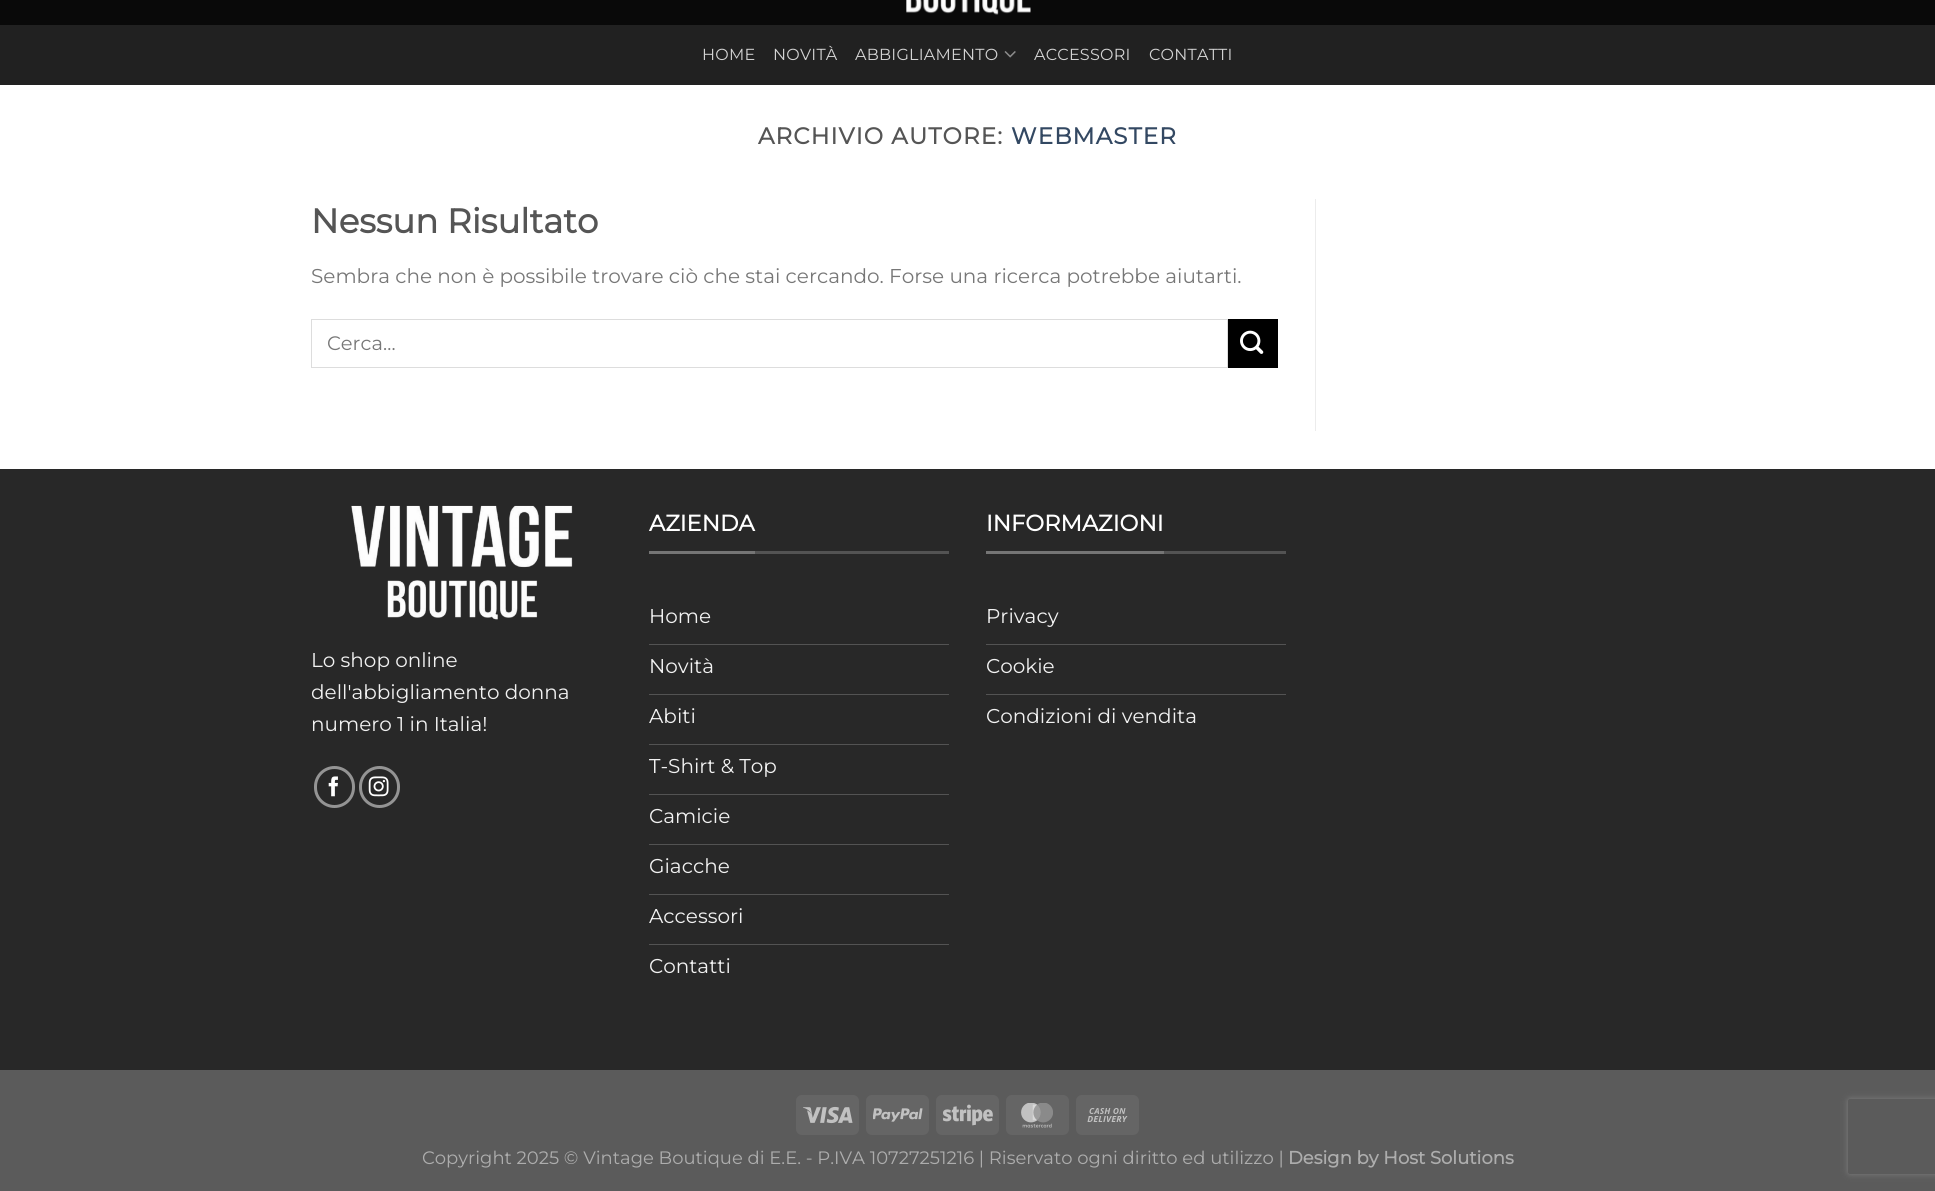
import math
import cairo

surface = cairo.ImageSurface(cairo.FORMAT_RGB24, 1935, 1191)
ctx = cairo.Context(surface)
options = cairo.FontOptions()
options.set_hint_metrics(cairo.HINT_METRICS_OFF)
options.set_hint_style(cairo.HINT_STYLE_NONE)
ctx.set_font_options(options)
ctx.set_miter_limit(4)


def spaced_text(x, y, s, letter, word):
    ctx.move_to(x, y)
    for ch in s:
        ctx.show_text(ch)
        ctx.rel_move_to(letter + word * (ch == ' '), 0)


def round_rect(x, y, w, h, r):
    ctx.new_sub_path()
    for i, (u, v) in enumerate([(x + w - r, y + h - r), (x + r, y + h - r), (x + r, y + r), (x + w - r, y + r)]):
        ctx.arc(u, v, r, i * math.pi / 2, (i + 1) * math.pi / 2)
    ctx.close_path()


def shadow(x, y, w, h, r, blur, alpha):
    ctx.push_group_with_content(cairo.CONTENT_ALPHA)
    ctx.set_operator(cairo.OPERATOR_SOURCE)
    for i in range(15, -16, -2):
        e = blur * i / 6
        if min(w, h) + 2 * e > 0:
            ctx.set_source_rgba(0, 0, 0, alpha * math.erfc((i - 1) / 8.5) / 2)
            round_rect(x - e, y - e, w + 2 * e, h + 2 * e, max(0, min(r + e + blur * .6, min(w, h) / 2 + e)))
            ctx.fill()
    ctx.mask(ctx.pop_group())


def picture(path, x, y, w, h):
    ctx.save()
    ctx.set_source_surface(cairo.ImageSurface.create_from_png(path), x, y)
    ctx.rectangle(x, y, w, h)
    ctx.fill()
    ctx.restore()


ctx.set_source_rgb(1, 1, 1)
ctx.paint()
ctx.set_source_rgb(0.039, 0.039, 0.039)
ctx.rectangle(0, 0, 1935, 25)
ctx.fill()
picture("img1.png", 906, 0, 125, 15)
ctx.set_source_rgb(0.129, 0.129, 0.129)
ctx.rectangle(0, 25, 1935, 60)
ctx.fill()
ctx.select_font_face("Montserrat Thin")
ctx.set_font_size(16)
ctx.set_source_rgb(0.827, 0.827, 0.827)
spaced_text(702, 60, "HOME", 0.25, 0)
spaced_text(773, 60, "NOVITÀ", 0.25, 0)
spaced_text(855, 60, "ABBIGLIAMENTO", 0.25, 0)
picture("img2.png", 1004, 51, 12, 7)
spaced_text(1034, 60, "ACCESSORI", 0.25, 0)
spaced_text(1149, 60, "CONTATTI", 0.25, 0)
ctx.select_font_face("Montserrat", cairo.FONT_SLANT_NORMAL, cairo.FONT_WEIGHT_BOLD)
ctx.set_font_size(23)
ctx.set_source_rgb(0.333, 0.333, 0.333)
spaced_text(758, 144, "ARCHIVIO AUTORE:", 1.1, 0)
ctx.set_source_rgb(0.2, 0.282, 0.384)
spaced_text(1011, 144, "WEBMASTER", 1.1, 0)
ctx.set_font_size(34)
ctx.set_source_rgb(0.333, 0.333, 0.333)
ctx.move_to(311, 233)
ctx.show_text("Nessun Risultato")
ctx.select_font_face("Montserrat Thin")
ctx.set_font_size(20)
ctx.set_source_rgb(0.467, 0.467, 0.467)
ctx.move_to(311, 283)
ctx.show_text("Sembra che non è possibile trovare ciò che stai cercando. Forse una ricerca potrebbe aiutarti.")
ctx.rectangle(311.5, 319.5, 916, 48)
ctx.set_source_rgb(0.867, 0.867, 0.867)
ctx.set_line_width(1)
ctx.stroke()
ctx.set_font_size(19.5)
ctx.set_source_rgb(0.467, 0.467, 0.467)
ctx.move_to(327, 350)
ctx.show_text("Cerca…")
ctx.set_source_rgb(0, 0, 0)
ctx.rectangle(1228, 319, 50, 49)
ctx.fill()
picture("img3.png", 1240, 330, 24, 24)
ctx.set_source_rgb(0.925, 0.925, 0.925)
ctx.rectangle(1315, 199, 1, 232)
ctx.fill()
ctx.set_source_rgb(0.157, 0.157, 0.157)
ctx.rectangle(0, 469, 1935, 601)
ctx.fill()
picture("img4.png", 351, 505, 222, 115)
ctx.set_font_size(20)
ctx.set_source_rgb(0.945, 0.945, 0.945)
ctx.move_to(311, 667)
ctx.show_text("Lo shop online")
ctx.move_to(311, 699)
ctx.show_text("dell'abbigliamento donna")
ctx.move_to(311, 731)
ctx.show_text("numero 1 in Italia!")
round_rect(315.5, 767.5, 38, 39, 19)
ctx.set_source_rgb(0.58, 0.58, 0.58)
ctx.set_line_width(3)
ctx.stroke()
picture("img5.png", 328, 776, 10, 21)
round_rect(360.5, 767.5, 38, 39, 19)
ctx.stroke()
picture("img6.png", 368, 776, 21, 21)
ctx.set_source_rgb(0.325, 0.325, 0.325)
ctx.rectangle(755, 551, 194, 3)
ctx.fill()
ctx.set_source_rgb(0.459, 0.459, 0.459)
ctx.rectangle(649, 551, 106, 3)
ctx.fill()
ctx.select_font_face("Montserrat", cairo.FONT_SLANT_NORMAL, cairo.FONT_WEIGHT_BOLD)
ctx.set_font_size(22.5)
ctx.set_source_rgb(1, 1, 1)
ctx.move_to(649, 531)
ctx.show_text("AZIENDA")
ctx.set_source_rgb(0.325, 0.325, 0.325)
ctx.rectangle(649, 644, 300, 1)
ctx.fill()
ctx.select_font_face("Montserrat Thin")
ctx.set_font_size(20)
ctx.set_source_rgb(0.945, 0.945, 0.945)
ctx.move_to(649, 623)
ctx.show_text("Home")
ctx.set_source_rgb(0.325, 0.325, 0.325)
ctx.rectangle(649, 694, 300, 1)
ctx.fill()
ctx.set_source_rgb(0.945, 0.945, 0.945)
ctx.move_to(649, 673)
ctx.show_text("Novità")
ctx.set_source_rgb(0.325, 0.325, 0.325)
ctx.rectangle(649, 744, 300, 1)
ctx.fill()
ctx.set_source_rgb(0.945, 0.945, 0.945)
ctx.move_to(649, 723)
ctx.show_text("Abiti")
ctx.set_source_rgb(0.325, 0.325, 0.325)
ctx.rectangle(649, 794, 300, 1)
ctx.fill()
ctx.set_source_rgb(0.945, 0.945, 0.945)
ctx.move_to(649, 773)
ctx.show_text("T-Shirt & Top")
ctx.set_source_rgb(0.325, 0.325, 0.325)
ctx.rectangle(649, 844, 300, 1)
ctx.fill()
ctx.set_source_rgb(0.945, 0.945, 0.945)
ctx.move_to(649, 823)
ctx.show_text("Camicie")
ctx.set_source_rgb(0.325, 0.325, 0.325)
ctx.rectangle(649, 894, 300, 1)
ctx.fill()
ctx.set_source_rgb(0.945, 0.945, 0.945)
ctx.move_to(649, 873)
ctx.show_text("Giacche")
ctx.set_source_rgb(0.325, 0.325, 0.325)
ctx.rectangle(649, 944, 300, 1)
ctx.fill()
ctx.set_source_rgb(0.945, 0.945, 0.945)
ctx.move_to(649, 923)
ctx.show_text("Accessori")
ctx.move_to(649, 973)
ctx.show_text("Contatti")
ctx.set_source_rgb(0.325, 0.325, 0.325)
ctx.rectangle(1164, 551, 122, 3)
ctx.fill()
ctx.set_source_rgb(0.459, 0.459, 0.459)
ctx.rectangle(986, 551, 178, 3)
ctx.fill()
ctx.select_font_face("Montserrat", cairo.FONT_SLANT_NORMAL, cairo.FONT_WEIGHT_BOLD)
ctx.set_font_size(22.5)
ctx.set_source_rgb(1, 1, 1)
ctx.move_to(986, 531)
ctx.show_text("INFORMAZIONI")
ctx.set_source_rgb(0.325, 0.325, 0.325)
ctx.rectangle(986, 644, 300, 1)
ctx.fill()
ctx.select_font_face("Montserrat Thin")
ctx.set_font_size(20)
ctx.set_source_rgb(0.945, 0.945, 0.945)
ctx.move_to(986, 623)
ctx.show_text("Privacy")
ctx.set_source_rgb(0.325, 0.325, 0.325)
ctx.rectangle(986, 694, 300, 1)
ctx.fill()
ctx.set_source_rgb(0.945, 0.945, 0.945)
ctx.move_to(986, 673)
ctx.show_text("Cookie")
ctx.move_to(986, 723)
ctx.show_text("Condizioni di vendita")
ctx.set_source_rgb(0.357, 0.357, 0.357)
ctx.rectangle(0, 1070, 1935, 121)
ctx.fill()
ctx.set_source_rgb(0.396, 0.396, 0.396)
round_rect(796, 1095, 63, 40, 6)
ctx.fill()
picture("img7.png", 803, 1106, 50, 18)
round_rect(866, 1095, 63, 40, 6)
ctx.fill()
picture("img8.png", 873, 1108, 50, 14)
round_rect(936, 1095, 63, 40, 6)
ctx.fill()
picture("img9.png", 943, 1104, 50, 22)
round_rect(1006, 1095, 63, 40, 6)
ctx.fill()
picture("img10.png", 1021, 1103, 32, 25)
round_rect(1076, 1095, 63, 40, 6)
ctx.fill()
picture("img11.png", 1087, 1108, 41, 14)
ctx.set_font_size(18)
ctx.set_source_rgb(0.678, 0.678, 0.678)
ctx.move_to(422, 1164)
ctx.show_text("Copyright 2025 © Vintage Boutique di E.E. - P.IVA 10727251216 | Riservato ogni diritto ed utilizzo |")
ctx.select_font_face("Montserrat", cairo.FONT_SLANT_NORMAL, cairo.FONT_WEIGHT_BOLD)
ctx.move_to(1288, 1164)
ctx.show_text("Design by Host Solutions")
ctx.save()
ctx.set_fill_rule(cairo.FILL_RULE_EVEN_ODD)
ctx.new_path()
ctx.move_to(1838, 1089)
ctx.line_to(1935, 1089)
ctx.line_to(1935, 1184)
ctx.line_to(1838, 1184)
ctx.close_path()
ctx.move_to(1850.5, 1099)
ctx.line_to(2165.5, 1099)
ctx.curve_to(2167, 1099, 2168, 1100, 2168, 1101.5)
ctx.line_to(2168, 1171.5)
ctx.curve_to(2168, 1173, 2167, 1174, 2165.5, 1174)
ctx.line_to(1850.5, 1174)
ctx.curve_to(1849, 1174, 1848, 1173, 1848, 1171.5)
ctx.line_to(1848, 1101.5)
ctx.curve_to(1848, 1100, 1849, 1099, 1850.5, 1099)
ctx.close_path()
ctx.clip()
ctx.set_source_rgb(0.502, 0.502, 0.502)
shadow(1848, 1099, 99, 75, 2.5, 3, 1)
ctx.restore()
surface.write_to_png("page.png")
